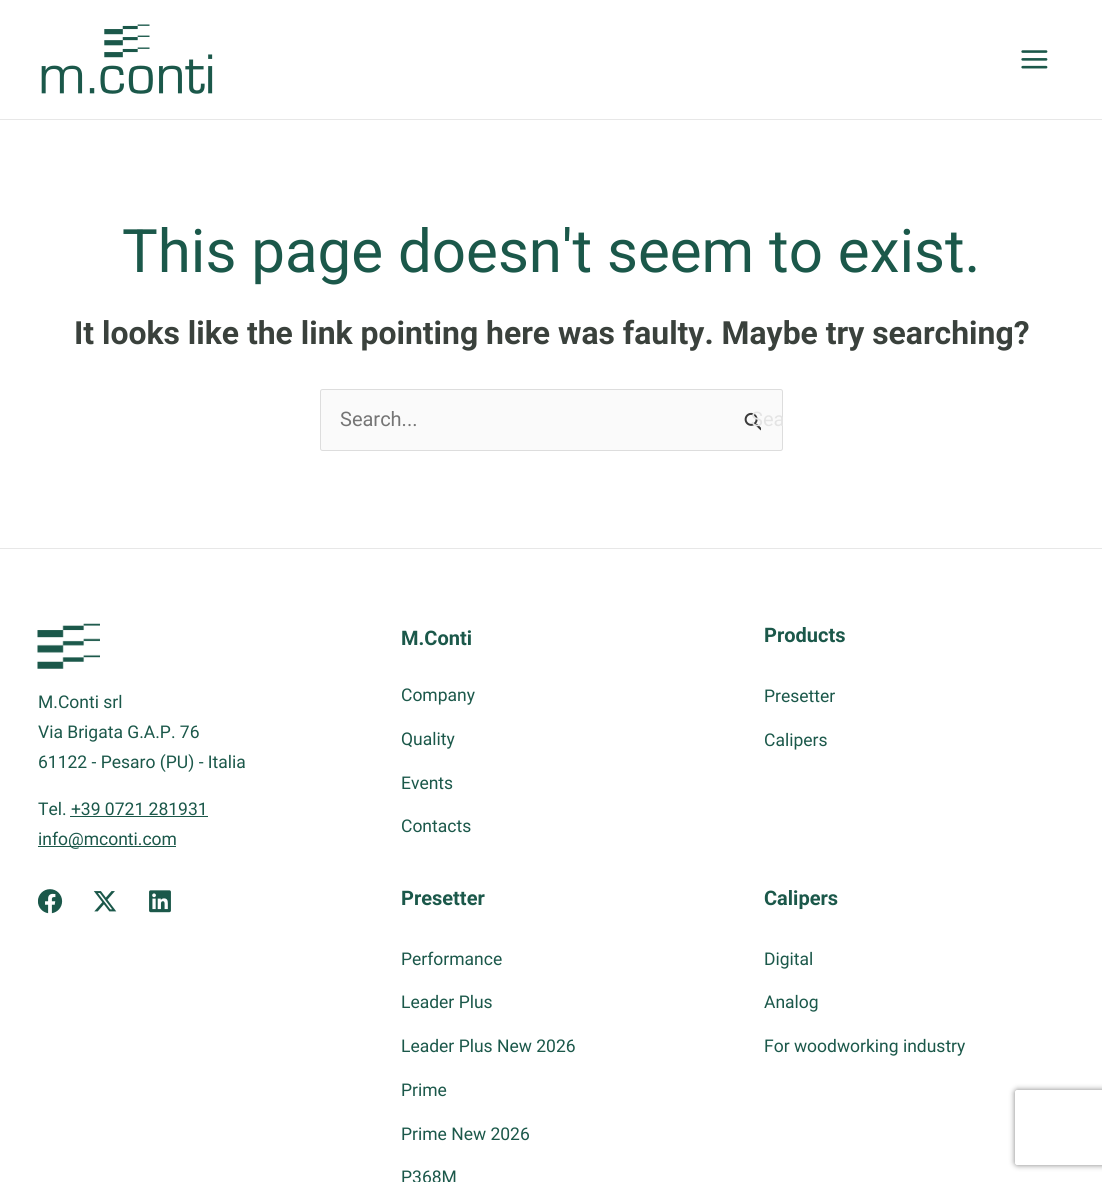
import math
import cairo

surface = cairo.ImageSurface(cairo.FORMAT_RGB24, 1102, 1182)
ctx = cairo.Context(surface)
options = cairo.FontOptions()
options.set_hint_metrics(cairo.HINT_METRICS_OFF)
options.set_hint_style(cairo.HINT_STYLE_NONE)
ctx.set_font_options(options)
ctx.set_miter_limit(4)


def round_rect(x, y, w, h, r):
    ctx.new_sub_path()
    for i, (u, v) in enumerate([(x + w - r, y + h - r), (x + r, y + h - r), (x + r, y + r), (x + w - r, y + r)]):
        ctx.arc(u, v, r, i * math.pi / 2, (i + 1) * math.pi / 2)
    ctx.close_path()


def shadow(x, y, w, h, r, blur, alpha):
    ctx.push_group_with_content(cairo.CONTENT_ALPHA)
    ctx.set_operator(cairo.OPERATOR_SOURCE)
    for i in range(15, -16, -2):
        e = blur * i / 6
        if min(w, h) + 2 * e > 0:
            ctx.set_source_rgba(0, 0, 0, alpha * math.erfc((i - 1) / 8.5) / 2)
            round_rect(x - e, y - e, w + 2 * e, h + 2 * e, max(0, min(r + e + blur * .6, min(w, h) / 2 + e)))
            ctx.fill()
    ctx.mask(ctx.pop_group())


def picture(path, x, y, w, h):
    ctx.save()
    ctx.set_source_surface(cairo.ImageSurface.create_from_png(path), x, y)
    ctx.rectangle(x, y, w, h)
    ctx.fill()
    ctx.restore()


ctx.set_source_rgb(1, 1, 1)
ctx.paint()
ctx.set_source_rgb(0.906, 0.906, 0.906)
ctx.rectangle(0, 119, 1102, 1)
ctx.fill()
picture("img1.png", 41, 24, 172, 70)
picture("img2.png", 1021, 50, 27, 19)
ctx.select_font_face("Roboto")
ctx.set_font_size(60)
ctx.set_source_rgb(0.106, 0.345, 0.29)
ctx.move_to(122, 272)
ctx.show_text("This page doesn't seem to exist.")
ctx.select_font_face("Roboto", cairo.FONT_SLANT_NORMAL, cairo.FONT_WEIGHT_BOLD)
ctx.set_font_size(31.9)
ctx.set_source_rgb(0.227, 0.255, 0.235)
ctx.move_to(74, 344)
ctx.show_text("It looks like the link pointing here was faulty. Maybe try searching?")
ctx.set_source_rgb(0.98, 0.98, 0.98)
round_rect(320.5, 389.5, 462, 61, 2)
ctx.fill_preserve()
ctx.set_source_rgb(0.867, 0.867, 0.867)
ctx.set_line_width(1)
ctx.stroke()
ctx.select_font_face("Roboto")
ctx.set_font_size(20)
ctx.set_source_rgb(0.459, 0.459, 0.459)
ctx.move_to(340, 426)
ctx.show_text("Search...")
picture("img3.png", 744, 412, 17, 19)
ctx.save()
round_rect(726, 389, 57, 62, 2.5)
ctx.clip()
ctx.set_source_rgb(0.894, 0.894, 0.894)
ctx.move_to(751, 426)
ctx.show_text("Sea")
ctx.restore()
ctx.set_source_rgb(0.906, 0.906, 0.906)
ctx.rectangle(0, 548, 1102, 1)
ctx.fill()
picture("img4.png", 37, 623, 63, 46)
ctx.set_font_size(17.5)
ctx.set_source_rgb(0.106, 0.345, 0.29)
ctx.move_to(38, 708)
ctx.show_text("M.Conti srl")
ctx.move_to(38, 738)
ctx.show_text("Via Brigata G.A.P. 76")
ctx.move_to(38, 768)
ctx.show_text("61122 - Pesaro (PU) - Italia")
ctx.move_to(38, 815)
ctx.show_text("Tel. +39 0721 281931")
ctx.rectangle(70, 816, 138, 1)
ctx.fill()
ctx.rectangle(38, 846, 138, 1)
ctx.fill()
ctx.move_to(38, 845)
ctx.show_text("info@mconti.com")
picture("img5.png", 38, 889, 25, 25)
picture("img6.png", 93, 891, 24, 21)
picture("img7.png", 149, 890, 22, 23)
ctx.select_font_face("Roboto", cairo.FONT_SLANT_NORMAL, cairo.FONT_WEIGHT_BOLD)
ctx.set_font_size(20)
ctx.move_to(401, 645)
ctx.show_text("M.Conti")
ctx.select_font_face("Roboto")
ctx.set_font_size(17.5)
ctx.move_to(401, 701)
ctx.show_text("Company")
ctx.move_to(401, 745)
ctx.show_text("Quality")
ctx.move_to(401, 789)
ctx.show_text("Events")
ctx.move_to(401, 832)
ctx.show_text("Contacts")
ctx.select_font_face("Roboto", cairo.FONT_SLANT_NORMAL, cairo.FONT_WEIGHT_BOLD)
ctx.set_font_size(20)
ctx.move_to(764, 642)
ctx.show_text("Products")
ctx.select_font_face("Roboto")
ctx.set_font_size(17.5)
ctx.move_to(764, 702)
ctx.show_text("Presetter")
ctx.move_to(764, 746)
ctx.show_text("Calipers")
ctx.select_font_face("Roboto", cairo.FONT_SLANT_NORMAL, cairo.FONT_WEIGHT_BOLD)
ctx.set_font_size(20)
ctx.move_to(401, 905)
ctx.show_text("Presetter")
ctx.select_font_face("Roboto")
ctx.set_font_size(17.5)
ctx.move_to(401, 965)
ctx.show_text("Performance")
ctx.move_to(401, 1008)
ctx.show_text("Leader Plus")
ctx.move_to(401, 1052)
ctx.show_text("Leader Plus New 2026")
ctx.move_to(401, 1096)
ctx.show_text("Prime")
ctx.move_to(401, 1140)
ctx.show_text("Prime New 2026")
ctx.move_to(401, 1183)
ctx.show_text("P368M")
ctx.select_font_face("Roboto", cairo.FONT_SLANT_NORMAL, cairo.FONT_WEIGHT_BOLD)
ctx.set_font_size(20)
ctx.move_to(764, 905)
ctx.show_text("Calipers")
ctx.select_font_face("Roboto")
ctx.set_font_size(17.5)
ctx.move_to(764, 965)
ctx.show_text("Digital")
ctx.move_to(764, 1008)
ctx.show_text("Analog")
ctx.move_to(764, 1052)
ctx.show_text("For woodworking industry")
ctx.save()
ctx.set_fill_rule(cairo.FILL_RULE_EVEN_ODD)
ctx.new_path()
ctx.move_to(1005, 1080)
ctx.line_to(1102, 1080)
ctx.line_to(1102, 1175)
ctx.line_to(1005, 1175)
ctx.close_path()
ctx.move_to(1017.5, 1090)
ctx.line_to(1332.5, 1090)
ctx.curve_to(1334, 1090, 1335, 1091, 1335, 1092.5)
ctx.line_to(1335, 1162.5)
ctx.curve_to(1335, 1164, 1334, 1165, 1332.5, 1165)
ctx.line_to(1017.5, 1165)
ctx.curve_to(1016, 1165, 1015, 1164, 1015, 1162.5)
ctx.line_to(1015, 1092.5)
ctx.curve_to(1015, 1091, 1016, 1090, 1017.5, 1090)
ctx.close_path()
ctx.clip()
ctx.set_source_rgb(0.502, 0.502, 0.502)
shadow(1015, 1090, 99, 75, 2.5, 3, 1)
ctx.restore()
surface.write_to_png("page.png")
